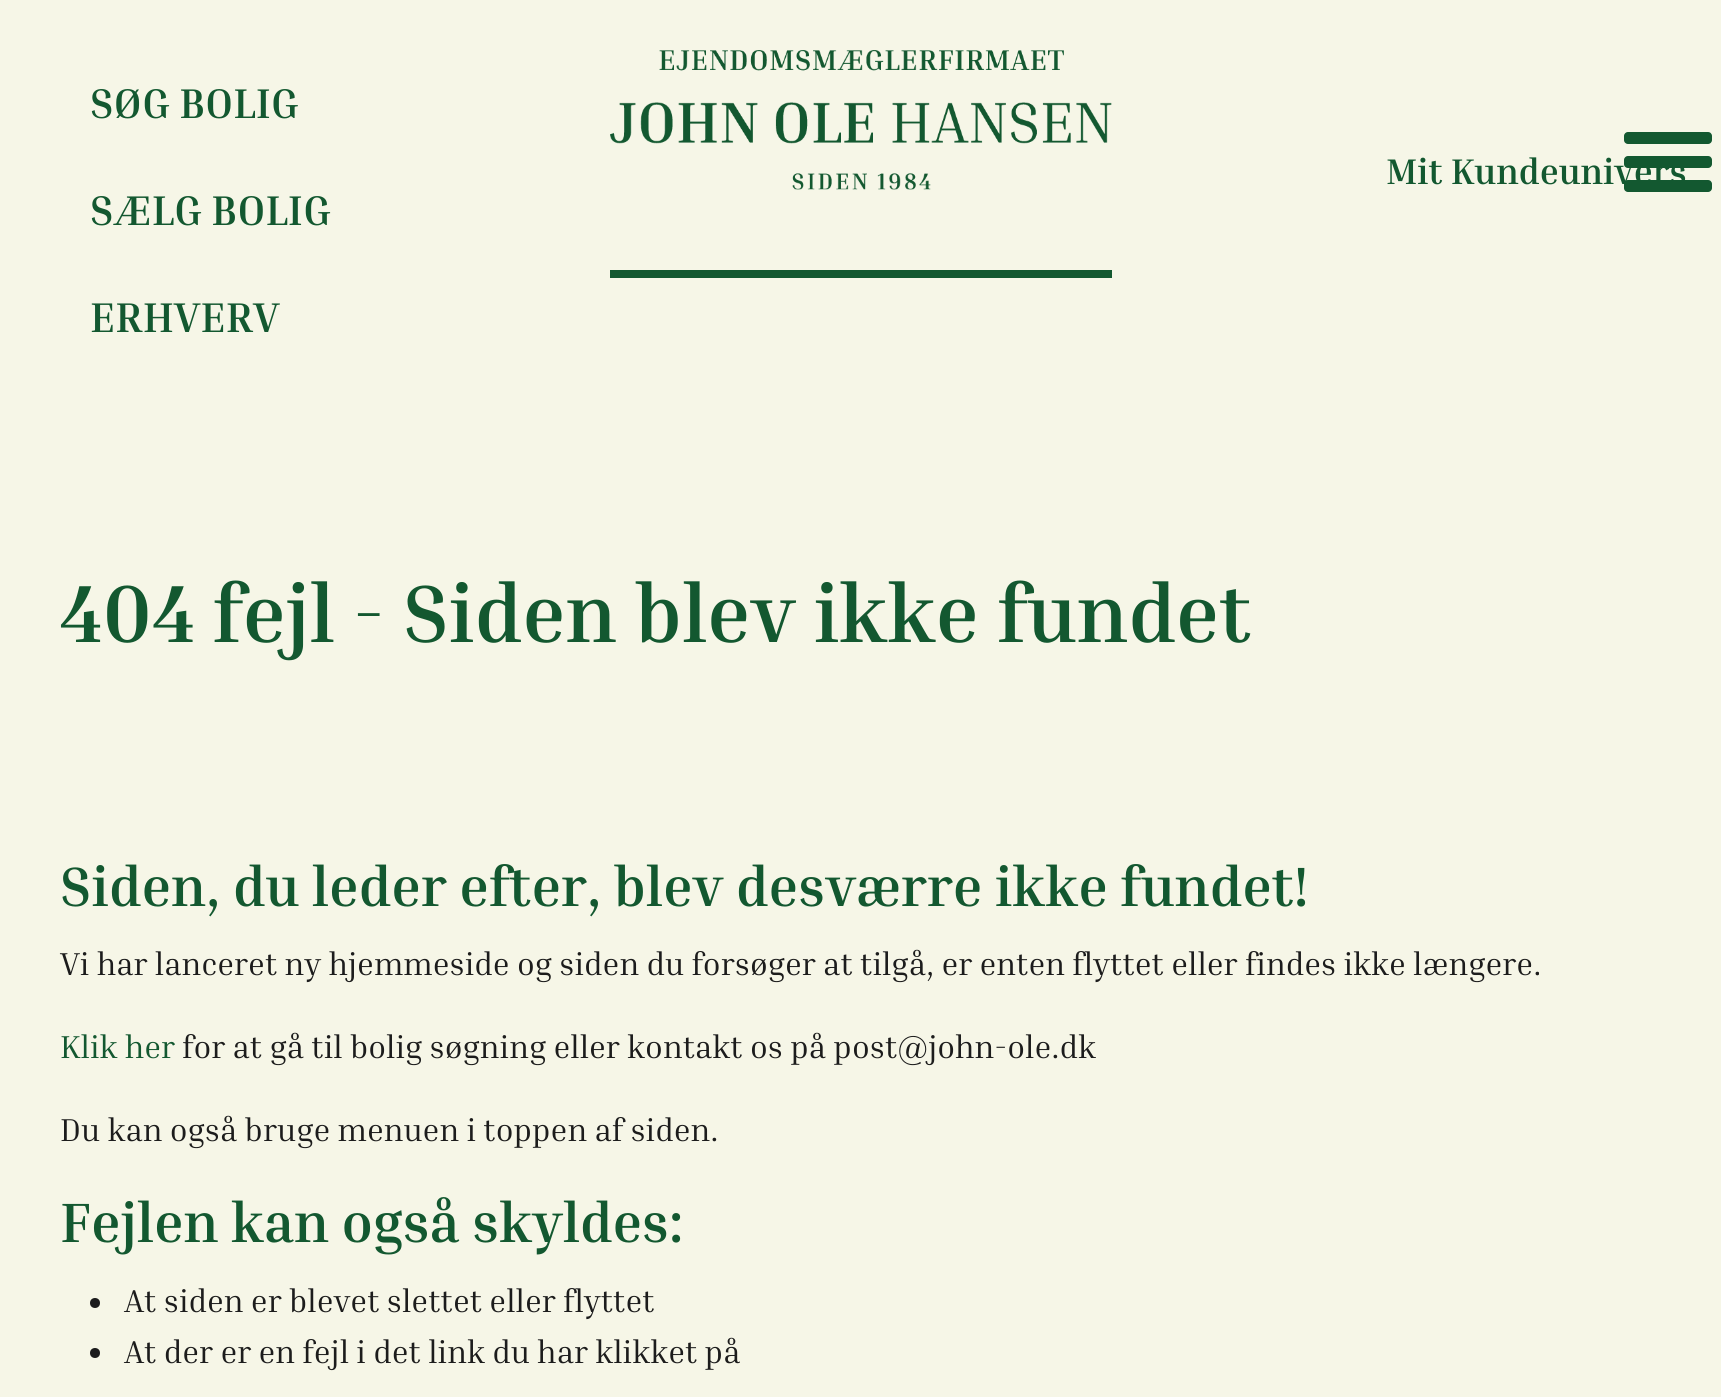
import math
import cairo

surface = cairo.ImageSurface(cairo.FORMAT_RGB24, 1721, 1397)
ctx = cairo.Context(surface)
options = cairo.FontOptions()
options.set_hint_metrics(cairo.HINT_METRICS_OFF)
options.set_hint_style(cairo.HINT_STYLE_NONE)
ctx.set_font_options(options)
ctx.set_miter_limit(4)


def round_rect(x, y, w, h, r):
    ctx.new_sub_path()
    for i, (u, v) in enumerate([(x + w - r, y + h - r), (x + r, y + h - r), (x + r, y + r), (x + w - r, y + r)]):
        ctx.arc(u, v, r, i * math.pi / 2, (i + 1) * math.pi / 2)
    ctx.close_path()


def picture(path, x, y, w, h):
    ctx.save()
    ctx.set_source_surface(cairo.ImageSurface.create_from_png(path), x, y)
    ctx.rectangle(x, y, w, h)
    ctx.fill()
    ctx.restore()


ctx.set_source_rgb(0.961, 0.961, 0.906)
ctx.paint()
ctx.select_font_face("Inria Serif", cairo.FONT_SLANT_NORMAL, cairo.FONT_WEIGHT_BOLD)
ctx.set_font_size(42)
ctx.set_source_rgb(0.075, 0.345, 0.188)
ctx.move_to(90, 118)
ctx.show_text("SØG BOLIG")
ctx.move_to(90, 225)
ctx.show_text("SÆLG BOLIG")
ctx.move_to(90, 332)
ctx.show_text("ERHVERV")
picture("img1.png", 610, 50, 502, 140)
ctx.rectangle(610, 270, 502, 8)
ctx.fill()
round_rect(1624, 132, 88, 12, 4)
ctx.fill()
round_rect(1624, 156, 88, 12, 4)
ctx.fill()
round_rect(1624, 180, 88, 12, 4)
ctx.fill()
ctx.set_font_size(36)
ctx.move_to(1386, 184)
ctx.show_text("Mit Kundeunivers")
ctx.set_font_size(82)
ctx.move_to(60, 642)
ctx.show_text("404 fejl - Siden blev ikke fundet")
ctx.set_font_size(56)
ctx.move_to(60, 906)
ctx.show_text("Siden, du leder efter, blev desværre ikke fundet!")
ctx.select_font_face("Inria Serif")
ctx.set_font_size(32)
ctx.set_source_rgb(0.11, 0.11, 0.11)
ctx.move_to(60, 975)
ctx.show_text("Vi har lanceret ny hjemmeside og siden du forsøger at tilgå, er enten flyttet eller findes ikke længere.")
ctx.set_source_rgb(0.075, 0.345, 0.188)
ctx.move_to(60, 1058)
ctx.show_text("Klik her")
ctx.set_source_rgb(0.11, 0.11, 0.11)
ctx.move_to(182, 1058)
ctx.show_text("for at gå til bolig søgning eller kontakt os på post@john-ole.dk")
ctx.move_to(60, 1141)
ctx.show_text("Du kan også bruge menuen i toppen af siden.")
ctx.select_font_face("Inria Serif", cairo.FONT_SLANT_NORMAL, cairo.FONT_WEIGHT_BOLD)
ctx.set_font_size(56)
ctx.set_source_rgb(0.075, 0.345, 0.188)
ctx.move_to(60, 1242)
ctx.show_text("Fejlen kan også skyldes:")
ctx.set_source_rgb(0.11, 0.11, 0.11)
ctx.new_path()
ctx.arc(95, 1303, 5, 0, 2 * math.pi)
ctx.fill()
ctx.select_font_face("Inria Serif")
ctx.set_font_size(32)
ctx.move_to(124, 1312)
ctx.show_text("At siden er blevet slettet eller flyttet")
ctx.new_path()
ctx.arc(95, 1353, 5, 0, 2 * math.pi)
ctx.fill()
ctx.move_to(124, 1363)
ctx.show_text("At der er en fejl i det link du har klikket på")
surface.write_to_png("page.png")
